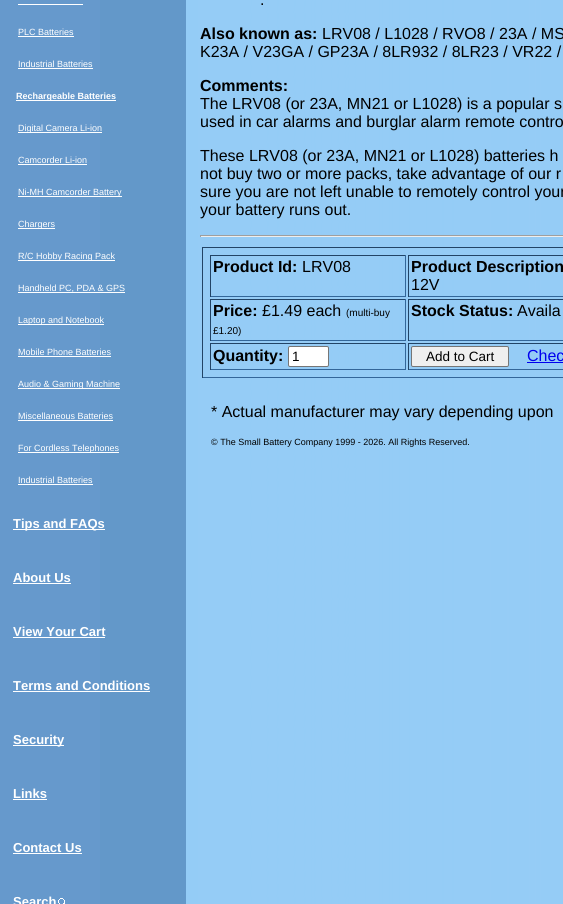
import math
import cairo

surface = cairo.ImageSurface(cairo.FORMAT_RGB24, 563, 904)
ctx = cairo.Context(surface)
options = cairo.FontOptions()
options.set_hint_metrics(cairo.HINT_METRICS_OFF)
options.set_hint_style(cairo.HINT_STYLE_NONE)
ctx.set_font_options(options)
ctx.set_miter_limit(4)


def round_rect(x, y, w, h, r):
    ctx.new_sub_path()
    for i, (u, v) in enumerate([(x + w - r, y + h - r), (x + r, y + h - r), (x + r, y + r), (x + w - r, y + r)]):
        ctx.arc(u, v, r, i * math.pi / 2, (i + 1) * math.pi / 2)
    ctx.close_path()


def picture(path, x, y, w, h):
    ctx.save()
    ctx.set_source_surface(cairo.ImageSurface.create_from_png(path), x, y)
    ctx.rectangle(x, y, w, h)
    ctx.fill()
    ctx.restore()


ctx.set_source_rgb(1, 1, 1)
ctx.paint()
picture("img1.png", 100, 459, 463, 445)
picture("img2.png", 100, 0, 463, 459)
ctx.set_source_rgb(0.4, 0.6, 0.8)
ctx.rectangle(0, 0, 100, 904)
ctx.fill()
ctx.set_source_rgb(1, 1, 1)
ctx.rectangle(18, 4, 65, 1)
ctx.fill()
ctx.select_font_face("Liberation Sans")
ctx.set_font_size(9)
ctx.move_to(18, 35)
ctx.show_text("PLC Batteries")
ctx.rectangle(18, 36, 56, 1)
ctx.fill()
ctx.move_to(18, 67)
ctx.show_text("Industrial Batteries")
ctx.rectangle(18, 68, 75, 1)
ctx.fill()
ctx.rectangle(16, 100, 100, 1)
ctx.fill()
ctx.select_font_face("Liberation Sans", cairo.FONT_SLANT_NORMAL, cairo.FONT_WEIGHT_BOLD)
ctx.move_to(16, 99)
ctx.show_text("Rechargeable Batteries")
ctx.rectangle(18, 132, 84, 1)
ctx.fill()
ctx.select_font_face("Liberation Sans")
ctx.move_to(18, 131)
ctx.show_text("Digital Camera Li-ion")
ctx.move_to(18, 163)
ctx.show_text("Camcorder Li-ion")
ctx.rectangle(18, 164, 69, 1)
ctx.fill()
ctx.rectangle(18, 196, 104, 1)
ctx.fill()
ctx.move_to(18, 195)
ctx.show_text("Ni-MH Camcorder Battery")
ctx.rectangle(18, 228, 37, 1)
ctx.fill()
ctx.move_to(18, 227)
ctx.show_text("Chargers")
ctx.rectangle(18, 260, 97, 1)
ctx.fill()
ctx.move_to(18, 259)
ctx.show_text("R/C Hobby Racing Pack")
ctx.rectangle(18, 292, 107, 1)
ctx.fill()
ctx.move_to(18, 291)
ctx.show_text("Handheld PC, PDA & GPS")
ctx.rectangle(18, 324, 86, 1)
ctx.fill()
ctx.move_to(18, 323)
ctx.show_text("Laptop and Notebook")
ctx.move_to(18, 355)
ctx.show_text("Mobile Phone Batteries")
ctx.rectangle(18, 356, 93, 1)
ctx.fill()
ctx.rectangle(18, 388, 102, 1)
ctx.fill()
ctx.move_to(18, 387)
ctx.show_text("Audio & Gaming Machine")
ctx.move_to(18, 419)
ctx.show_text("Miscellaneous Batteries")
ctx.rectangle(18, 420, 95, 1)
ctx.fill()
ctx.rectangle(18, 452, 101, 1)
ctx.fill()
ctx.move_to(18, 451)
ctx.show_text("For Cordless Telephones")
ctx.move_to(18, 483)
ctx.show_text("Industrial Batteries")
ctx.rectangle(18, 484, 75, 1)
ctx.fill()
ctx.rectangle(13, 529, 92, 1)
ctx.fill()
ctx.select_font_face("Liberation Sans", cairo.FONT_SLANT_NORMAL, cairo.FONT_WEIGHT_BOLD)
ctx.set_font_size(13)
ctx.move_to(13, 528)
ctx.show_text("Tips and FAQs")
ctx.move_to(13, 582)
ctx.show_text("About Us")
ctx.rectangle(13, 583, 58, 1)
ctx.fill()
ctx.move_to(13, 636)
ctx.show_text("View Your Cart")
ctx.rectangle(13, 637, 92, 1)
ctx.fill()
ctx.move_to(13, 690)
ctx.show_text("Terms and Conditions")
ctx.rectangle(13, 691, 137, 1)
ctx.fill()
ctx.rectangle(13, 745, 51, 1)
ctx.fill()
ctx.move_to(13, 744)
ctx.show_text("Security")
ctx.move_to(13, 798)
ctx.show_text("Links")
ctx.rectangle(13, 799, 34, 1)
ctx.fill()
ctx.move_to(13, 852)
ctx.show_text("Contact Us")
ctx.rectangle(13, 853, 69, 1)
ctx.fill()
ctx.move_to(13, 906)
ctx.show_text("Search")
picture("img3.png", 58, 898, 7, 6)
ctx.select_font_face("Liberation Sans")
ctx.set_font_size(16)
ctx.set_source_rgb(0, 0, 0)
ctx.move_to(260, 5)
ctx.show_text(".")
ctx.select_font_face("Liberation Sans", cairo.FONT_SLANT_NORMAL, cairo.FONT_WEIGHT_BOLD)
ctx.move_to(200, 39)
ctx.show_text("Also known as:")
ctx.select_font_face("Liberation Sans")
ctx.move_to(322, 39)
ctx.show_text("LRV08 / L1028 / RVO8 / 23A / MS")
ctx.move_to(200, 57)
ctx.show_text("K23A / V23GA / GP23A / 8LR932 / 8LR23 / VR22 /")
ctx.select_font_face("Liberation Sans", cairo.FONT_SLANT_NORMAL, cairo.FONT_WEIGHT_BOLD)
ctx.move_to(200, 91)
ctx.show_text("Comments:")
ctx.select_font_face("Liberation Sans")
ctx.move_to(200, 109)
ctx.show_text("The LRV08 (or 23A, MN21 or L1028) is a popular s")
ctx.move_to(200, 127)
ctx.show_text("used in car alarms and burglar alarm remote contro")
ctx.move_to(200, 161)
ctx.show_text("These LRV08 (or 23A, MN21 or L1028) batteries h")
ctx.move_to(200, 179)
ctx.show_text("not buy two or more packs, take advantage of our r")
ctx.move_to(200, 197)
ctx.show_text("sure you are not left unable to remotely control your")
ctx.move_to(200, 215)
ctx.show_text("your battery runs out.")
ctx.set_source_rgb(0.624, 0.624, 0.624)
ctx.rectangle(200, 235, 363, 1)
ctx.fill()
ctx.set_source_rgb(0.933, 0.933, 0.933)
ctx.rectangle(200, 236, 363, 1)
ctx.fill()
ctx.set_source_rgb(0.624, 0.624, 0.624)
ctx.rectangle(200, 235, 1, 2)
ctx.fill()
ctx.set_source_rgb(0.133, 0.267, 0.4)
ctx.rectangle(202, 247, 361, 1)
ctx.fill()
ctx.set_source_rgb(0.2, 0.4, 0.6)
ctx.rectangle(202, 377, 361, 1)
ctx.fill()
ctx.set_source_rgb(0.133, 0.267, 0.4)
ctx.rectangle(202, 247, 1, 131)
ctx.fill()
ctx.rectangle(210, 255, 196, 1)
ctx.fill()
ctx.set_source_rgb(0.2, 0.4, 0.6)
ctx.rectangle(405, 255, 1, 42)
ctx.fill()
ctx.rectangle(210, 296, 196, 1)
ctx.fill()
ctx.set_source_rgb(0.133, 0.267, 0.4)
ctx.rectangle(210, 255, 1, 42)
ctx.fill()
ctx.select_font_face("Liberation Sans", cairo.FONT_SLANT_NORMAL, cairo.FONT_WEIGHT_BOLD)
ctx.set_source_rgb(0, 0, 0)
ctx.move_to(213, 272)
ctx.show_text("Product Id:")
ctx.select_font_face("Liberation Sans")
ctx.move_to(302, 272)
ctx.show_text("LRV08")
ctx.set_source_rgb(0.133, 0.267, 0.4)
ctx.rectangle(408, 255, 155, 1)
ctx.fill()
ctx.set_source_rgb(0.2, 0.4, 0.6)
ctx.rectangle(408, 296, 155, 1)
ctx.fill()
ctx.set_source_rgb(0.133, 0.267, 0.4)
ctx.rectangle(408, 255, 1, 42)
ctx.fill()
ctx.select_font_face("Liberation Sans", cairo.FONT_SLANT_NORMAL, cairo.FONT_WEIGHT_BOLD)
ctx.set_source_rgb(0, 0, 0)
ctx.move_to(411, 272)
ctx.show_text("Product Description")
ctx.select_font_face("Liberation Sans")
ctx.move_to(411, 290)
ctx.show_text("12V")
ctx.set_source_rgb(0.133, 0.267, 0.4)
ctx.rectangle(210, 299, 196, 1)
ctx.fill()
ctx.set_source_rgb(0.2, 0.4, 0.6)
ctx.rectangle(405, 299, 1, 42)
ctx.fill()
ctx.rectangle(210, 340, 196, 1)
ctx.fill()
ctx.set_source_rgb(0.133, 0.267, 0.4)
ctx.rectangle(210, 299, 1, 42)
ctx.fill()
ctx.select_font_face("Liberation Sans", cairo.FONT_SLANT_NORMAL, cairo.FONT_WEIGHT_BOLD)
ctx.set_source_rgb(0, 0, 0)
ctx.move_to(213, 316)
ctx.show_text("Price:")
ctx.select_font_face("Liberation Sans")
ctx.move_to(262, 316)
ctx.show_text("£1.49 each")
ctx.set_font_size(10)
ctx.move_to(346, 316)
ctx.show_text("(multi-buy")
ctx.move_to(213, 334)
ctx.show_text("£1.20)")
ctx.set_source_rgb(0.133, 0.267, 0.4)
ctx.rectangle(408, 299, 155, 1)
ctx.fill()
ctx.set_source_rgb(0.2, 0.4, 0.6)
ctx.rectangle(408, 340, 155, 1)
ctx.fill()
ctx.set_source_rgb(0.133, 0.267, 0.4)
ctx.rectangle(408, 299, 1, 42)
ctx.fill()
ctx.select_font_face("Liberation Sans", cairo.FONT_SLANT_NORMAL, cairo.FONT_WEIGHT_BOLD)
ctx.set_font_size(16)
ctx.set_source_rgb(0, 0, 0)
ctx.move_to(411, 316)
ctx.show_text("Stock Status:")
ctx.select_font_face("Liberation Sans")
ctx.move_to(517, 316)
ctx.show_text("Availa")
ctx.set_source_rgb(0.133, 0.267, 0.4)
ctx.rectangle(210, 343, 196, 1)
ctx.fill()
ctx.set_source_rgb(0.2, 0.4, 0.6)
ctx.rectangle(405, 343, 1, 27)
ctx.fill()
ctx.rectangle(210, 369, 196, 1)
ctx.fill()
ctx.set_source_rgb(0.133, 0.267, 0.4)
ctx.rectangle(210, 343, 1, 27)
ctx.fill()
ctx.select_font_face("Liberation Sans", cairo.FONT_SLANT_NORMAL, cairo.FONT_WEIGHT_BOLD)
ctx.set_source_rgb(0, 0, 0)
ctx.move_to(213, 361)
ctx.show_text("Quantity:")
ctx.set_source_rgb(1, 1, 1)
round_rect(288.5, 346.5, 40, 20, 1.5)
ctx.fill_preserve()
ctx.set_source_rgb(0.463, 0.463, 0.463)
ctx.set_line_width(1)
ctx.stroke()
ctx.select_font_face("Liberation Sans")
ctx.set_font_size(13.5)
ctx.set_source_rgb(0, 0, 0)
ctx.move_to(292, 361)
ctx.show_text("1")
ctx.set_source_rgb(0.133, 0.267, 0.4)
ctx.rectangle(408, 343, 155, 1)
ctx.fill()
ctx.set_source_rgb(0.2, 0.4, 0.6)
ctx.rectangle(408, 369, 155, 1)
ctx.fill()
ctx.set_source_rgb(0.133, 0.267, 0.4)
ctx.rectangle(408, 343, 1, 27)
ctx.fill()
ctx.set_source_rgb(0.937, 0.937, 0.937)
round_rect(411.5, 346.5, 97, 20, 1.5)
ctx.fill_preserve()
ctx.set_source_rgb(0.463, 0.463, 0.463)
ctx.stroke()
ctx.set_source_rgb(0, 0, 0)
ctx.move_to(426, 361)
ctx.show_text("Add to Cart")
ctx.set_font_size(16)
ctx.set_source_rgb(0, 0, 0.933)
ctx.move_to(527, 361)
ctx.show_text("Chec")
ctx.rectangle(527, 362, 36, 1)
ctx.fill()
ctx.set_source_rgb(0, 0, 0)
ctx.move_to(211, 417)
ctx.show_text("* Actual manufacturer may vary depending upon")
ctx.set_font_size(9)
ctx.move_to(211, 445)
ctx.show_text("© The Small Battery Company 1999 - 2026. All Rights Reserved.")
surface.write_to_png("page.png")
